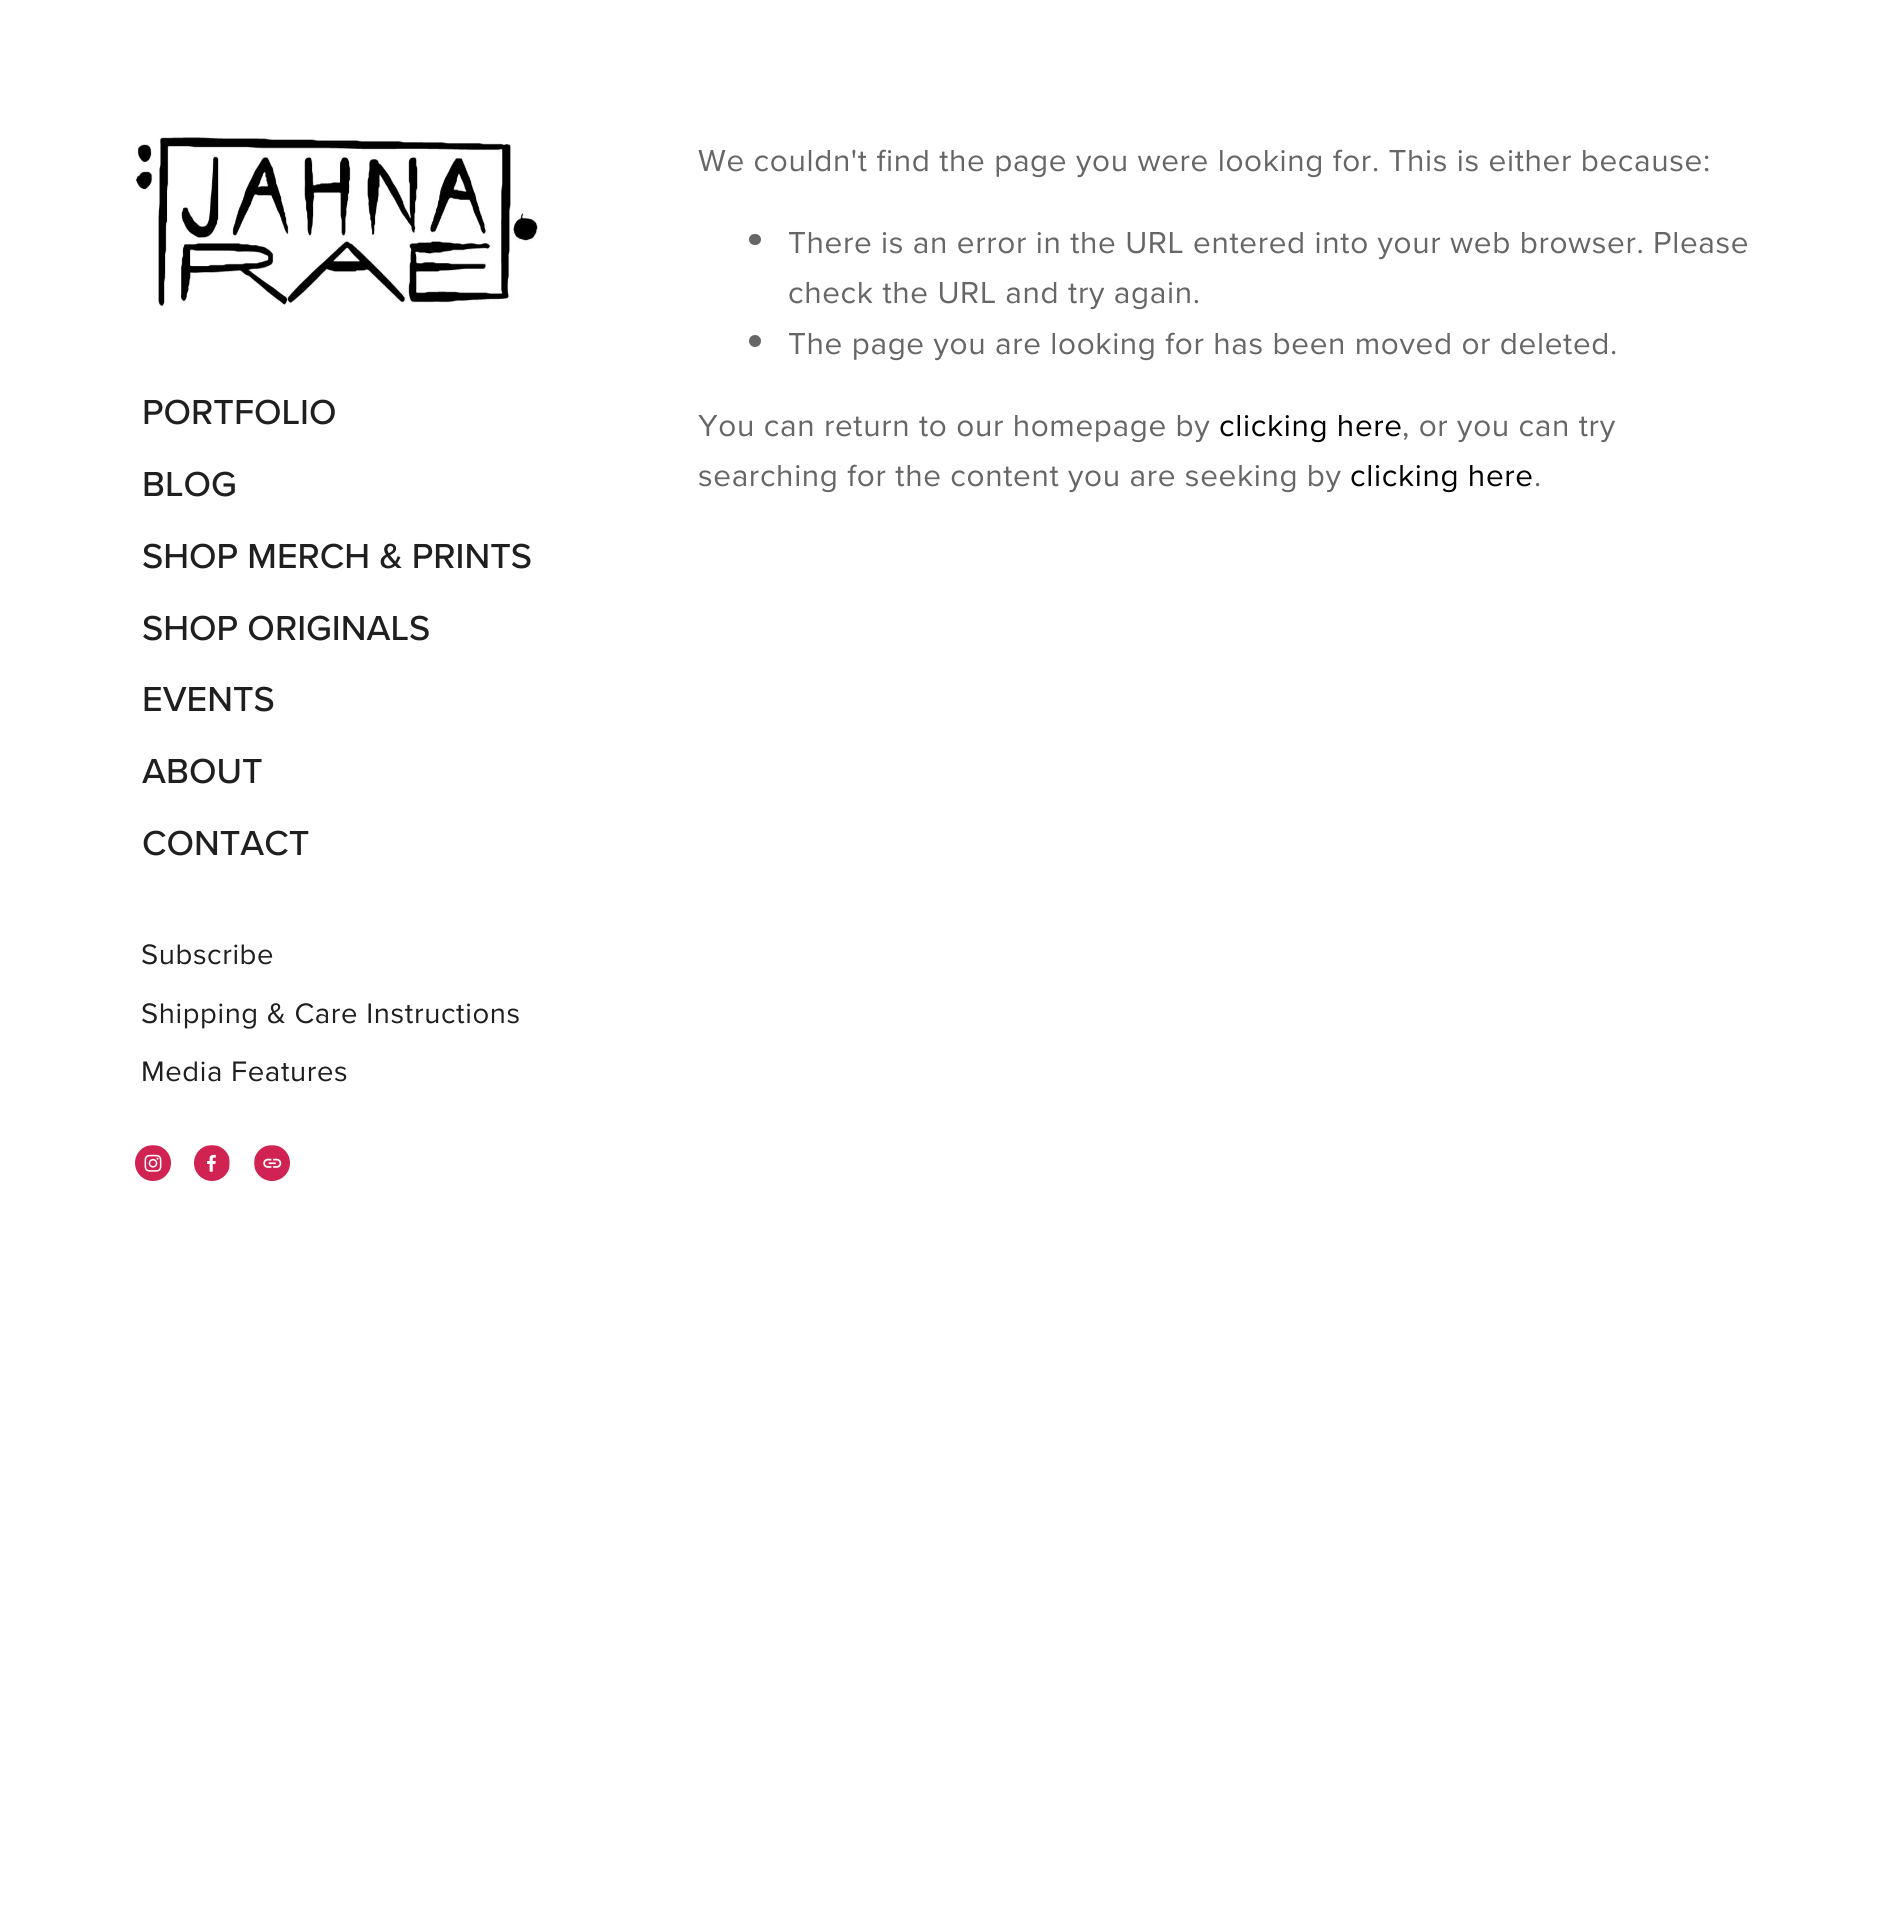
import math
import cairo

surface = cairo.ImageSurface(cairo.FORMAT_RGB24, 1891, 1905)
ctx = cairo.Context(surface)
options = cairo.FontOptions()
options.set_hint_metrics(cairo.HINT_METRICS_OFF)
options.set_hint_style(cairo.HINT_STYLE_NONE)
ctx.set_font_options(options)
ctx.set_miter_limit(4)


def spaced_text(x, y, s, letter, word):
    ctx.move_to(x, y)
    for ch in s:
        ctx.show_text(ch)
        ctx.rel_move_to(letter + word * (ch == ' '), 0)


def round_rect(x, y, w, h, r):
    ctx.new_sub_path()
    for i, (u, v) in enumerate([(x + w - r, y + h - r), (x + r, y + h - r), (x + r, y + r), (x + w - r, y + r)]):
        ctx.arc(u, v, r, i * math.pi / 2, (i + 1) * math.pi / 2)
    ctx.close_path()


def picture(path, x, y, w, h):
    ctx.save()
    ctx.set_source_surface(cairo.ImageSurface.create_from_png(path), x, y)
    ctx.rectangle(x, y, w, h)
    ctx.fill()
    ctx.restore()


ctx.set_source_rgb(1, 1, 1)
ctx.paint()
ctx.select_font_face("Proxima Nova")
ctx.set_font_size(31.5)
ctx.set_source_rgb(0.4, 0.4, 0.4)
spaced_text(698, 171, "We couldn't find the page you were looking for. This is either because:", 0.63, 0)
round_rect(749, 234, 12, 11, 5.5)
ctx.fill()
spaced_text(788, 253, "There is an error in the URL entered into your web browser. Please", 0.63, 0)
spaced_text(788, 303, "check the URL and try again.", 0.63, 0)
ctx.new_path()
ctx.arc(755, 341, 6, 0, 2 * math.pi)
ctx.fill()
spaced_text(788, 354, "The page you are looking for has been moved or deleted.", 0.63, 0)
spaced_text(698, 436, "You can return to our homepage by", 0.63, 0)
ctx.set_source_rgb(0, 0, 0)
spaced_text(1219, 436, "clicking here", 0.63, 0)
ctx.set_source_rgb(0.4, 0.4, 0.4)
spaced_text(1402, 436, ", or you can try", 0.63, 0)
spaced_text(698, 486, "searching for the content you are seeking by", 0.63, 0)
ctx.set_source_rgb(0, 0, 0)
spaced_text(1350, 486, "clicking here", 0.63, 0)
ctx.set_source_rgb(0.4, 0.4, 0.4)
spaced_text(1534, 486, ".", 0.63, 0)
picture("img1.png", 135, 137, 404, 170)
ctx.select_font_face("Proxima Nova Medium")
ctx.set_font_size(36)
ctx.set_source_rgb(0.122, 0.122, 0.122)
ctx.move_to(142, 424)
ctx.show_text("PORTFOLIO")
ctx.move_to(142, 496)
ctx.show_text("BLOG")
ctx.move_to(142, 568)
ctx.show_text("SHOP MERCH & PRINTS")
ctx.move_to(142, 640)
ctx.show_text("SHOP ORIGINALS")
ctx.move_to(142, 711)
ctx.show_text("EVENTS")
ctx.move_to(142, 783)
ctx.show_text("ABOUT")
ctx.move_to(142, 855)
ctx.show_text("CONTACT")
ctx.select_font_face("Proxima Nova")
ctx.set_font_size(29.25)
spaced_text(141, 964, "Subscribe", 0.6, 0)
spaced_text(141, 1023, "Shipping & Care Instructions", 0.6, 0)
spaced_text(141, 1081, "Media Features", 0.6, 0)
picture("img2.png", 135, 1145, 36, 36)
picture("img3.png", 194, 1145, 36, 36)
picture("img4.png", 254, 1145, 36, 36)
surface.write_to_png("page.png")
